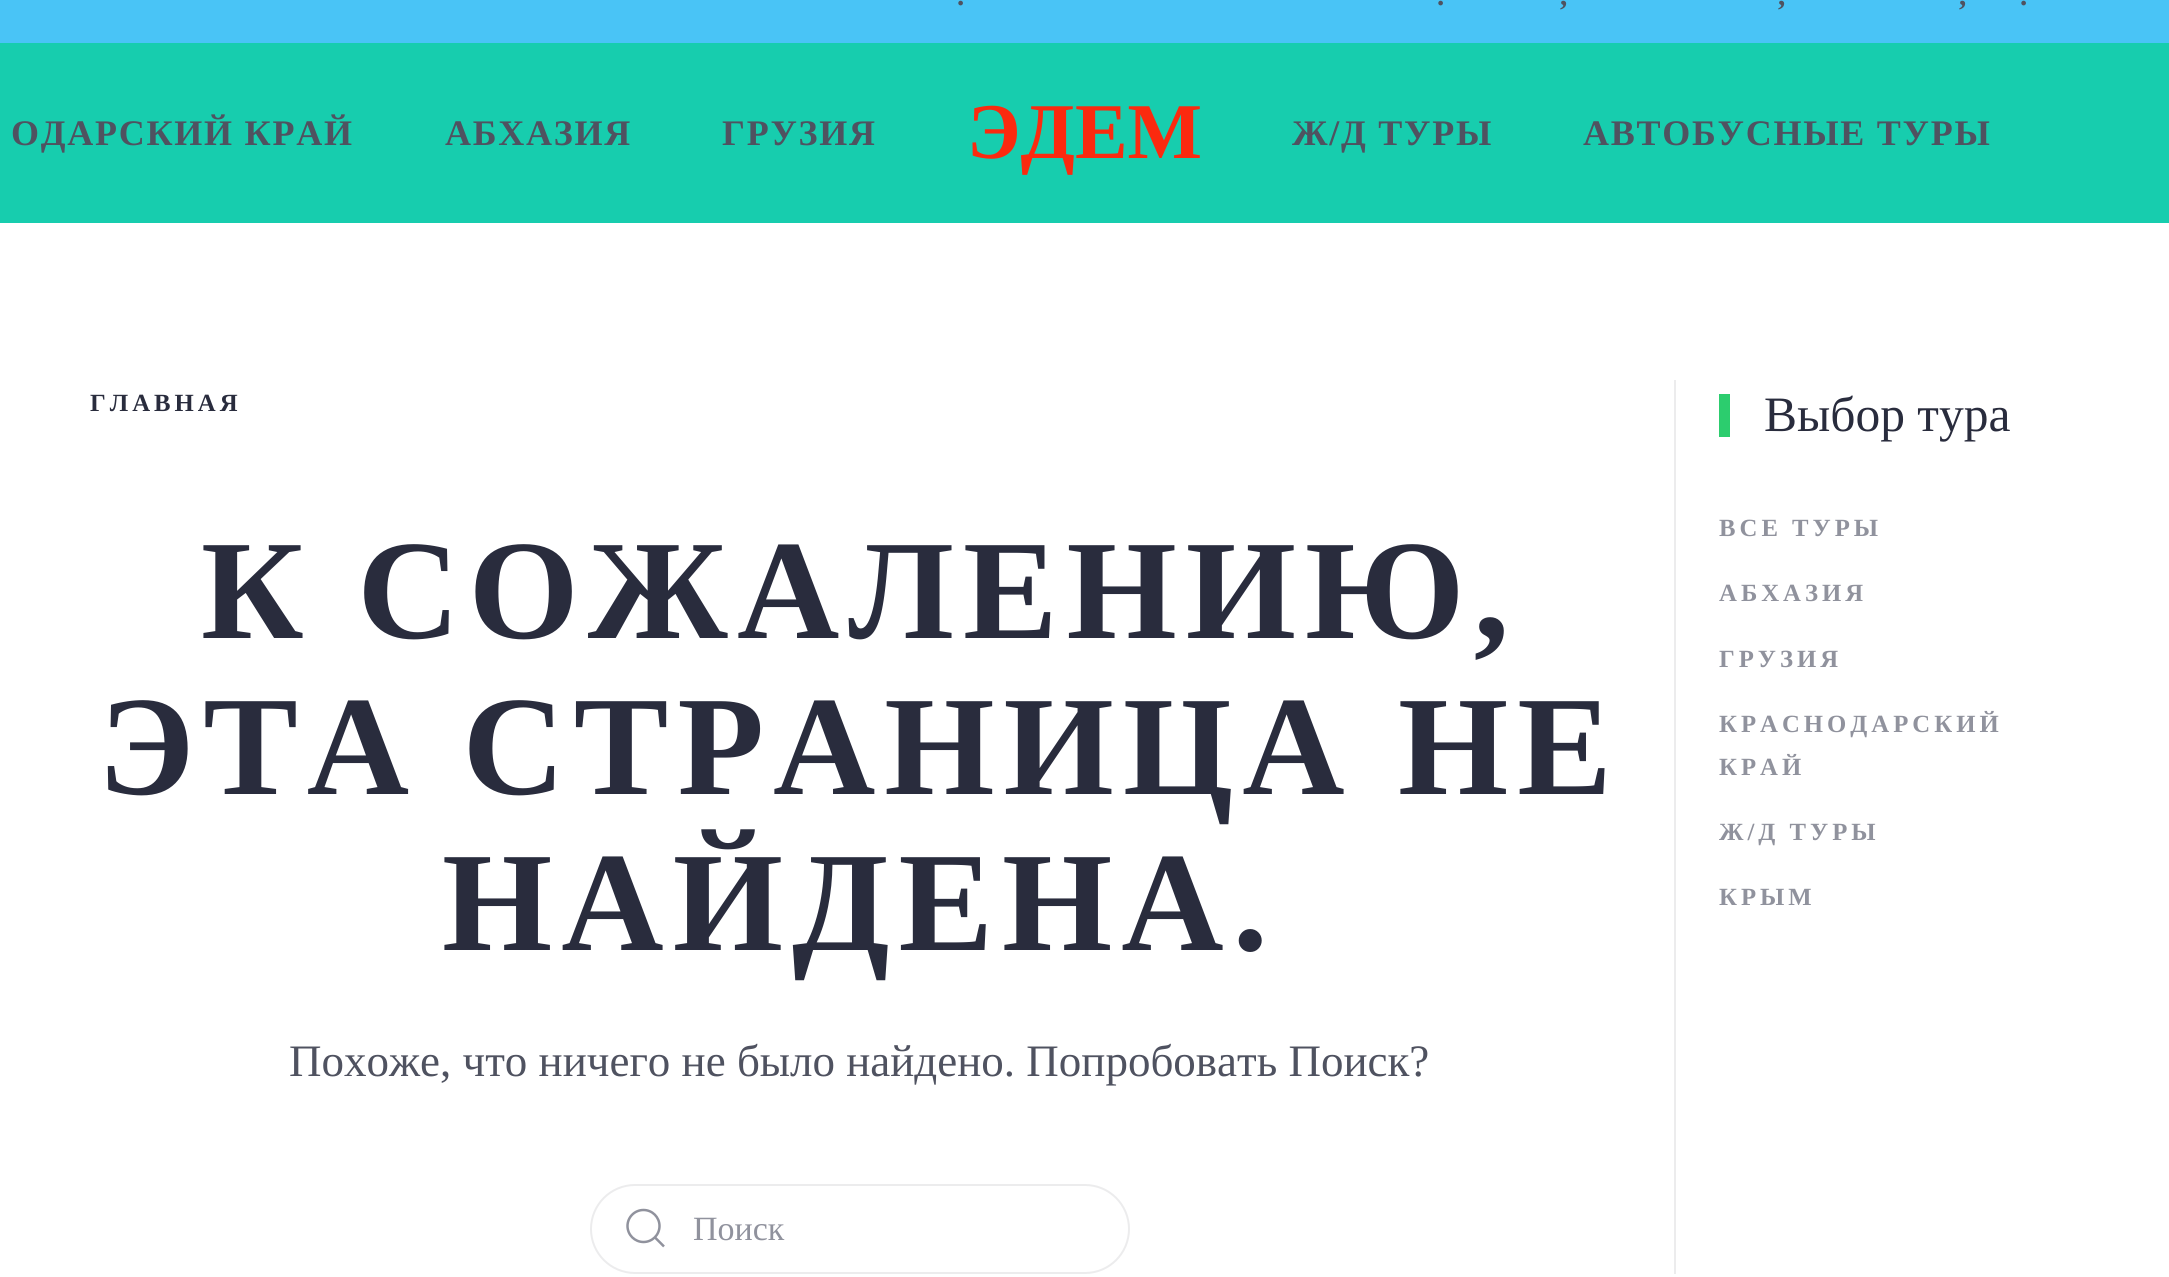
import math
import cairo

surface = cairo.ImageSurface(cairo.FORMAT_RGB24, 2169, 1277)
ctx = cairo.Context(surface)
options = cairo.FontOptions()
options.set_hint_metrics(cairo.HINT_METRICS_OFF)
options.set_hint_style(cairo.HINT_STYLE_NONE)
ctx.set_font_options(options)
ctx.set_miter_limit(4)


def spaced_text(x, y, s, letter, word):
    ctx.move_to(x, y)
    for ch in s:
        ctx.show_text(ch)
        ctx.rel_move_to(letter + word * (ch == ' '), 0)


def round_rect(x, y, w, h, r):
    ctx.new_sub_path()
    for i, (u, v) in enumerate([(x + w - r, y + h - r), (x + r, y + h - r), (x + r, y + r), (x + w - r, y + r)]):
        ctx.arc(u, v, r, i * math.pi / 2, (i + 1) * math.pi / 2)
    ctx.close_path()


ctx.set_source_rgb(1, 1, 1)
ctx.paint()
ctx.set_source_rgb(0.286, 0.769, 0.961)
ctx.rectangle(0, 0, 2169, 43)
ctx.fill()
ctx.select_font_face("Liberation Serif", cairo.FONT_SLANT_NORMAL, cairo.FONT_WEIGHT_BOLD)
ctx.set_font_size(29)
ctx.set_source_rgb(0.31, 0.322, 0.376)
ctx.move_to(957, 5)
ctx.show_text(".")
ctx.move_to(1437, 5)
ctx.show_text(".")
ctx.move_to(1560, 5)
ctx.show_text(",")
ctx.move_to(1778, 5)
ctx.show_text(",")
ctx.move_to(1959, 5)
ctx.show_text(",")
ctx.move_to(2020, 5)
ctx.show_text(".")
ctx.set_source_rgb(0.09, 0.804, 0.682)
ctx.rectangle(0, 43, 2169, 180)
ctx.fill()
ctx.set_font_size(36)
ctx.set_source_rgb(0.31, 0.322, 0.376)
spaced_text(11, 145, "ОДАРСКИЙ КРАЙ", 1.75, 0)
spaced_text(445, 145, "АБХАЗИЯ", 1.75, 0)
spaced_text(722, 145, "ГРУЗИЯ", 1.75, 0)
ctx.set_font_size(79)
ctx.set_source_rgb(0.984, 0.165, 0.059)
ctx.move_to(967, 158)
ctx.show_text("ЭДЕМ")
ctx.set_font_size(36)
ctx.set_source_rgb(0.31, 0.322, 0.376)
spaced_text(1292, 145, "Ж/Д ТУРЫ", 1.75, 0)
spaced_text(1583, 145, "АВТОБУСНЫЕ ТУРЫ", 1.75, 0)
ctx.set_font_size(24.75)
ctx.set_source_rgb(0.161, 0.173, 0.239)
spaced_text(90, 411, "ГЛАВНАЯ", 4, 0)
ctx.set_font_size(141.75)
spaced_text(201, 638, "К СОЖАЛЕНИЮ,", 9, 0)
spaced_text(98, 794, "ЭТА СТРАНИЦА НЕ", 9, 0)
spaced_text(442, 950, "НАЙДЕНА.", 9, 0)
ctx.select_font_face("Liberation Serif")
ctx.set_font_size(45)
ctx.set_source_rgb(0.31, 0.322, 0.376)
ctx.move_to(289, 1076)
ctx.show_text("Похоже, что ничего не было найдено. Попробовать Поиск?")
round_rect(591, 1185, 538, 88, 44)
ctx.set_source_rgb(0.922, 0.922, 0.929)
ctx.stroke()
ctx.arc(643.5, 1226, 16, 0, 2 * math.pi)
ctx.set_source_rgb(0.565, 0.573, 0.616)
ctx.set_line_width(2.5)
ctx.stroke()
ctx.new_path()
ctx.move_to(655, 1237.5)
ctx.line_to(664, 1246.5)
ctx.close_path()
ctx.stroke()
ctx.set_font_size(34)
ctx.move_to(693, 1240)
ctx.show_text("Поиск")
ctx.set_source_rgb(0.922, 0.922, 0.929)
ctx.rectangle(1674, 380, 2, 894)
ctx.fill()
ctx.set_source_rgb(0.173, 0.804, 0.431)
ctx.rectangle(1719, 394, 11, 43)
ctx.fill()
ctx.set_font_size(49.5)
ctx.set_source_rgb(0.161, 0.173, 0.239)
ctx.move_to(1764, 431)
ctx.show_text("Выбор тура")
ctx.select_font_face("Liberation Serif", cairo.FONT_SLANT_NORMAL, cairo.FONT_WEIGHT_BOLD)
ctx.set_font_size(24.75)
ctx.set_source_rgb(0.565, 0.573, 0.616)
spaced_text(1719, 536, "ВСЕ ТУРЫ", 4, 0)
spaced_text(1719, 601, "АБХАЗИЯ", 4, 0)
spaced_text(1719, 667, "ГРУЗИЯ", 4, 0)
spaced_text(1719, 732, "КРАСНОДАРСКИЙ", 4, 0)
spaced_text(1719, 775, "КРАЙ", 4, 0)
spaced_text(1719, 840, "Ж/Д ТУРЫ", 4, 0)
spaced_text(1719, 905, "КРЫМ", 4, 0)
surface.write_to_png("page.png")
